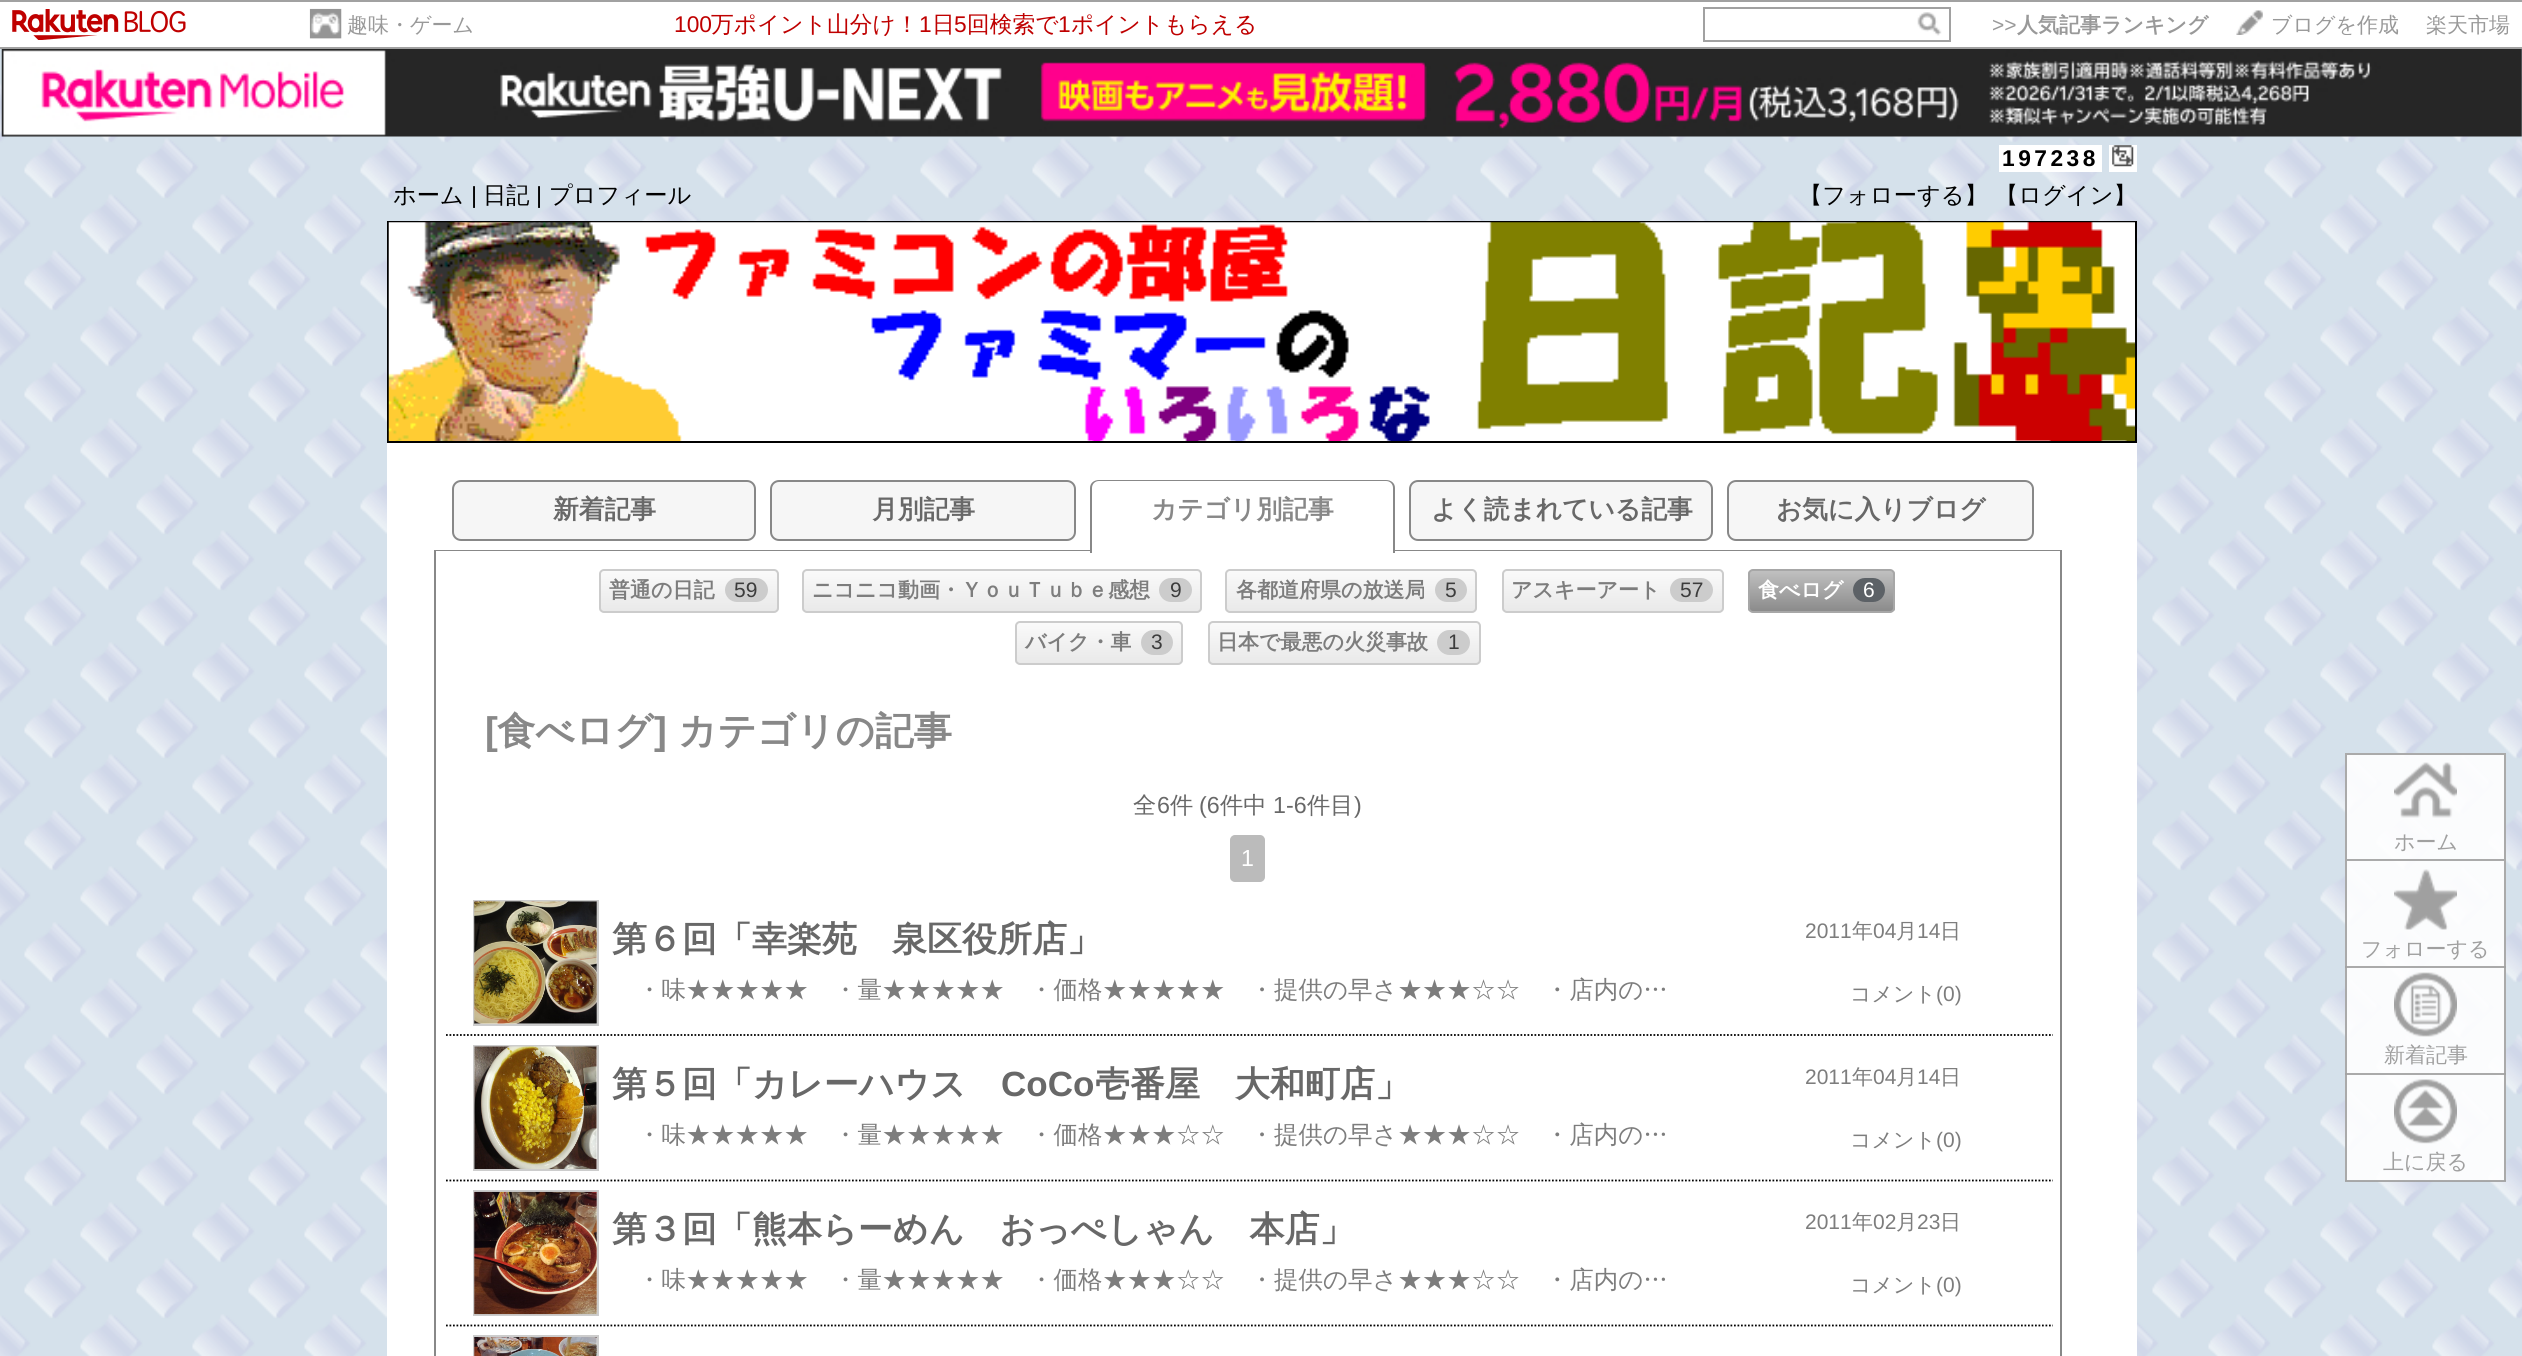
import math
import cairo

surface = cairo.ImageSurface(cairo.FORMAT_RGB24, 2522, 1356)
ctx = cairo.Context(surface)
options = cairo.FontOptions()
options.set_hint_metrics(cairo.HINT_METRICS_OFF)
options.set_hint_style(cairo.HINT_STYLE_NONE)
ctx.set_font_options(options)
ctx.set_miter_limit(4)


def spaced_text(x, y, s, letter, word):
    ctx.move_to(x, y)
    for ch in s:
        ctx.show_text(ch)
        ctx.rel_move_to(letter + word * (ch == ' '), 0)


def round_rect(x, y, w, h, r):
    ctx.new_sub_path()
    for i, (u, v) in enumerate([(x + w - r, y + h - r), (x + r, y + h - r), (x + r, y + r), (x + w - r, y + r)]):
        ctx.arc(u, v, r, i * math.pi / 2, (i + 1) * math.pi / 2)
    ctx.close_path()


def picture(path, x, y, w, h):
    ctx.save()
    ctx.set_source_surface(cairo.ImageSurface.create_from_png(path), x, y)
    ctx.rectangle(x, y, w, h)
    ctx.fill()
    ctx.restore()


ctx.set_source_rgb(1, 1, 1)
ctx.paint()
picture("img1.png", 0, 49, 2522, 1307)
ctx.set_source_rgb(0.631, 0.631, 0.631)
ctx.rectangle(0, 0, 2522, 2)
ctx.fill()
ctx.rectangle(0, 47, 2522, 2)
ctx.fill()
picture("img2.png", 12, 9, 174, 31)
picture("img3.png", 309, 8, 33, 31)
ctx.select_font_face("WenQuanYi Zen Hei Medium")
ctx.set_font_size(21)
ctx.set_source_rgb(0.6, 0.6, 0.6)
ctx.move_to(347, 32)
ctx.show_text("趣味・ゲーム")
ctx.select_font_face("Liberation Sans")
ctx.set_font_size(22.75)
ctx.set_source_rgb(0.749, 0, 0)
ctx.move_to(674, 32)
ctx.show_text("100")
ctx.select_font_face("WenQuanYi Zen Hei Medium")
ctx.move_to(711, 32)
ctx.show_text("万ポイント山分け！")
ctx.select_font_face("Liberation Sans")
ctx.move_to(919, 32)
ctx.show_text("1")
ctx.select_font_face("WenQuanYi Zen Hei Medium")
ctx.move_to(932, 32)
ctx.show_text("日")
ctx.select_font_face("Liberation Sans")
ctx.move_to(954, 32)
ctx.show_text("5")
ctx.select_font_face("WenQuanYi Zen Hei Medium")
ctx.move_to(967, 32)
ctx.show_text("回検索で")
ctx.select_font_face("Liberation Sans")
ctx.move_to(1058, 32)
ctx.show_text("1")
ctx.select_font_face("WenQuanYi Zen Hei Medium")
ctx.move_to(1071, 32)
ctx.show_text("ポイントもらえる")
ctx.rectangle(1704, 8, 246, 33)
ctx.set_source_rgb(0.631, 0.631, 0.631)
ctx.stroke()
picture("img4.png", 1917, 12, 25, 24)
ctx.select_font_face("Liberation Sans")
ctx.set_font_size(21)
ctx.set_source_rgb(0.6, 0.6, 0.6)
ctx.move_to(1992, 32)
ctx.show_text(">>")
ctx.select_font_face("WenQuanYi Zen Hei", cairo.FONT_SLANT_NORMAL, cairo.FONT_WEIGHT_BOLD)
ctx.move_to(2017, 32)
ctx.show_text("人気記事ランキング")
picture("img5.png", 2236, 10, 27, 25)
ctx.save()
ctx.rectangle(1992, 7, 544, 28)
ctx.clip()
ctx.select_font_face("WenQuanYi Zen Hei Medium")
ctx.move_to(2271, 32)
ctx.show_text("ブログを作成")
ctx.restore()
ctx.select_font_face("WenQuanYi Zen Hei Medium")
ctx.move_to(2426, 32)
ctx.show_text("楽天市場")
picture("img6.png", 1, 49, 2521, 88)
ctx.set_source_rgb(1, 1, 1)
ctx.rectangle(2109, 145, 28, 27)
ctx.fill()
ctx.rectangle(1999, 145, 103, 27)
ctx.fill()
ctx.select_font_face("Liberation Sans", cairo.FONT_SLANT_NORMAL, cairo.FONT_WEIGHT_BOLD)
ctx.set_font_size(22.75)
ctx.set_source_rgb(0, 0, 0)
spaced_text(2002, 166, "197238", 3.5, 0)
picture("img7.png", 2112, 145, 22, 22)
ctx.select_font_face("WenQuanYi Zen Hei Medium")
ctx.set_font_size(23.25)
ctx.move_to(393, 203)
ctx.show_text("ホーム")
ctx.select_font_face("Liberation Sans")
ctx.move_to(471, 203)
ctx.show_text("|")
ctx.select_font_face("WenQuanYi Zen Hei Medium")
ctx.move_to(483, 203)
ctx.show_text("日記")
ctx.select_font_face("Liberation Sans")
ctx.move_to(536, 203)
ctx.show_text("|")
ctx.select_font_face("WenQuanYi Zen Hei Medium")
ctx.move_to(549, 203)
ctx.show_text("プロフィール")
ctx.move_to(1799, 203)
ctx.show_text("【フォローする】")
ctx.move_to(1995, 203)
ctx.show_text("【ログイン】")
ctx.rectangle(388, 222, 1748, 220)
ctx.stroke()
picture("img8.png", 388, 222, 1747, 219)
ctx.set_source_rgb(1, 1, 1)
ctx.rectangle(387, 443, 1750, 913)
ctx.fill()
ctx.set_source_rgb(0.533, 0.533, 0.533)
ctx.rectangle(434, 550, 1628, 1)
ctx.fill()
ctx.set_source_rgb(0.961, 0.961, 0.961)
round_rect(453, 481, 302, 59, 8)
ctx.fill_preserve()
ctx.set_source_rgb(0.533, 0.533, 0.533)
ctx.stroke()
ctx.select_font_face("WenQuanYi Zen Hei", cairo.FONT_SLANT_NORMAL, cairo.FONT_WEIGHT_BOLD)
ctx.set_font_size(25.75)
ctx.set_source_rgb(0.408, 0.408, 0.408)
ctx.move_to(553, 518)
ctx.show_text("新着記事")
ctx.set_source_rgb(0.961, 0.961, 0.961)
round_rect(771, 481, 304, 59, 8)
ctx.fill_preserve()
ctx.set_source_rgb(0.533, 0.533, 0.533)
ctx.stroke()
ctx.set_source_rgb(0.408, 0.408, 0.408)
ctx.move_to(872, 518)
ctx.show_text("月別記事")
ctx.set_source_rgb(0.533, 0.533, 0.533)
ctx.set_fill_rule(cairo.FILL_RULE_EVEN_ODD)
ctx.new_path()
ctx.move_to(434, 551)
ctx.line_to(2062, 551)
ctx.line_to(2062, 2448)
ctx.curve_to(2062, 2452, 2058, 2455, 2054, 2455)
ctx.line_to(441, 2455)
ctx.curve_to(437, 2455, 434, 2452, 434, 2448)
ctx.close_path()
ctx.move_to(436, 551)
ctx.line_to(2060, 551)
ctx.line_to(2060, 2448)
ctx.curve_to(2060, 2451, 2057, 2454, 2054, 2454)
ctx.line_to(441, 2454)
ctx.curve_to(438, 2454, 436, 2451, 436, 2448)
ctx.close_path()
ctx.fill()
ctx.set_source_rgb(1, 1, 1)
ctx.new_path()
ctx.move_to(1099, 480)
ctx.line_to(1386, 480)
ctx.curve_to(1391, 480, 1395, 484, 1395, 489)
ctx.line_to(1395, 553)
ctx.line_to(1090, 553)
ctx.line_to(1090, 489)
ctx.curve_to(1090, 484, 1094, 480, 1099, 480)
ctx.close_path()
ctx.fill()
ctx.set_source_rgb(0.533, 0.533, 0.533)
ctx.new_path()
ctx.move_to(1099, 480)
ctx.line_to(1386, 480)
ctx.curve_to(1391, 480, 1395, 483, 1395, 488)
ctx.line_to(1395, 553)
ctx.line_to(1090, 553)
ctx.line_to(1090, 488)
ctx.curve_to(1090, 483, 1094, 480, 1099, 480)
ctx.close_path()
ctx.move_to(1099, 481)
ctx.line_to(1386, 481)
ctx.curve_to(1390, 481, 1393, 484, 1393, 488)
ctx.line_to(1393, 553)
ctx.line_to(1092, 553)
ctx.line_to(1092, 488)
ctx.curve_to(1092, 484, 1095, 481, 1099, 481)
ctx.close_path()
ctx.fill()
ctx.move_to(1151, 518)
ctx.show_text("カテゴリ別記事")
ctx.set_source_rgb(0.961, 0.961, 0.961)
round_rect(1410, 481, 302, 59, 8)
ctx.fill_preserve()
ctx.set_source_rgb(0.533, 0.533, 0.533)
ctx.stroke()
ctx.set_source_rgb(0.408, 0.408, 0.408)
ctx.move_to(1431, 518)
ctx.show_text("よく読まれている記事")
ctx.set_source_rgb(0.961, 0.961, 0.961)
round_rect(1728, 481, 305, 59, 8)
ctx.fill_preserve()
ctx.set_source_rgb(0.533, 0.533, 0.533)
ctx.stroke()
ctx.set_source_rgb(0.408, 0.408, 0.408)
ctx.move_to(1776, 518)
ctx.show_text("お気に入りブログ")
ctx.save()
ctx.set_fill_rule(cairo.FILL_RULE_WINDING)
round_rect(599, 569, 180, 44, 5)
ctx.clip()
gradient = cairo.LinearGradient(689, 571, 689, 611)
gradient.add_color_stop_rgba(0, 0.98, 0.98, 0.98, 1)
gradient.add_color_stop_rgba(1, 0.914, 0.914, 0.914, 1)
ctx.set_source(gradient)
ctx.rectangle(599, 571, 180, 40)
ctx.fill()
ctx.restore()
round_rect(600, 570, 178, 42, 4)
ctx.set_source_rgb(0.8, 0.8, 0.8)
ctx.stroke()
ctx.set_font_size(21)
ctx.set_source_rgb(0.49, 0.49, 0.49)
ctx.move_to(609, 597)
ctx.show_text("普通の日記")
ctx.set_source_rgb(0.8, 0.8, 0.8)
round_rect(725, 578, 43, 24, 12)
ctx.fill()
ctx.select_font_face("Liberation Sans")
ctx.set_source_rgb(0.235, 0.235, 0.235)
ctx.move_to(734, 597)
ctx.show_text("59")
ctx.save()
ctx.set_fill_rule(cairo.FILL_RULE_WINDING)
round_rect(802, 569, 400, 44, 5)
ctx.clip()
gradient = cairo.LinearGradient(1002, 571, 1002, 611)
gradient.add_color_stop_rgba(0, 0.98, 0.98, 0.98, 1)
gradient.add_color_stop_rgba(1, 0.914, 0.914, 0.914, 1)
ctx.set_source(gradient)
ctx.rectangle(802, 571, 400, 40)
ctx.fill()
ctx.restore()
round_rect(803, 570, 398, 42, 4)
ctx.set_source_rgb(0.8, 0.8, 0.8)
ctx.stroke()
ctx.select_font_face("WenQuanYi Zen Hei", cairo.FONT_SLANT_NORMAL, cairo.FONT_WEIGHT_BOLD)
ctx.set_source_rgb(0.49, 0.49, 0.49)
ctx.move_to(812, 597)
ctx.show_text("ニコニコ動画・ＹｏｕＴｕｂｅ感想")
ctx.set_source_rgb(0.8, 0.8, 0.8)
round_rect(1159, 578, 33, 24, 12)
ctx.fill()
ctx.select_font_face("Liberation Sans")
ctx.set_source_rgb(0.235, 0.235, 0.235)
ctx.move_to(1170, 597)
ctx.show_text("9")
ctx.save()
ctx.set_fill_rule(cairo.FILL_RULE_WINDING)
round_rect(1225, 569, 252, 44, 5)
ctx.clip()
gradient = cairo.LinearGradient(1351, 571, 1351, 611)
gradient.add_color_stop_rgba(0, 0.98, 0.98, 0.98, 1)
gradient.add_color_stop_rgba(1, 0.914, 0.914, 0.914, 1)
ctx.set_source(gradient)
ctx.rectangle(1225, 571, 252, 40)
ctx.fill()
ctx.restore()
round_rect(1226, 570, 250, 42, 4)
ctx.set_source_rgb(0.8, 0.8, 0.8)
ctx.stroke()
ctx.select_font_face("WenQuanYi Zen Hei", cairo.FONT_SLANT_NORMAL, cairo.FONT_WEIGHT_BOLD)
ctx.set_source_rgb(0.49, 0.49, 0.49)
ctx.move_to(1236, 597)
ctx.show_text("各都道府県の放送局")
ctx.set_source_rgb(0.8, 0.8, 0.8)
round_rect(1435, 578, 32, 24, 12)
ctx.fill()
ctx.select_font_face("Liberation Sans")
ctx.set_source_rgb(0.235, 0.235, 0.235)
ctx.move_to(1445, 597)
ctx.show_text("5")
ctx.save()
ctx.set_fill_rule(cairo.FILL_RULE_WINDING)
round_rect(1502, 569, 222, 44, 5)
ctx.clip()
gradient = cairo.LinearGradient(1613, 571, 1613, 611)
gradient.add_color_stop_rgba(0, 0.98, 0.98, 0.98, 1)
gradient.add_color_stop_rgba(1, 0.914, 0.914, 0.914, 1)
ctx.set_source(gradient)
ctx.rectangle(1502, 571, 222, 40)
ctx.fill()
ctx.restore()
round_rect(1503, 570, 220, 42, 4)
ctx.set_source_rgb(0.8, 0.8, 0.8)
ctx.stroke()
ctx.select_font_face("WenQuanYi Zen Hei", cairo.FONT_SLANT_NORMAL, cairo.FONT_WEIGHT_BOLD)
ctx.set_source_rgb(0.49, 0.49, 0.49)
ctx.move_to(1511, 597)
ctx.show_text("アスキーアート")
ctx.set_source_rgb(0.8, 0.8, 0.8)
round_rect(1670, 578, 43, 24, 12)
ctx.fill()
ctx.select_font_face("Liberation Sans")
ctx.set_source_rgb(0.235, 0.235, 0.235)
ctx.move_to(1680, 597)
ctx.show_text("57")
ctx.save()
ctx.set_fill_rule(cairo.FILL_RULE_WINDING)
round_rect(1748, 569, 147, 44, 5)
ctx.clip()
gradient = cairo.LinearGradient(1822, 571, 1822, 611)
gradient.add_color_stop_rgba(0, 0.753, 0.753, 0.753, 1)
gradient.add_color_stop_rgba(1, 0.545, 0.545, 0.545, 1)
ctx.set_source(gradient)
ctx.rectangle(1748, 571, 147, 40)
ctx.fill()
ctx.restore()
round_rect(1749, 570, 145, 42, 4)
ctx.set_source_rgb(0.655, 0.655, 0.655)
ctx.stroke()
ctx.select_font_face("WenQuanYi Zen Hei", cairo.FONT_SLANT_NORMAL, cairo.FONT_WEIGHT_BOLD)
ctx.set_source_rgb(1, 1, 1)
ctx.move_to(1758, 597)
ctx.show_text("食べログ")
ctx.set_source_rgb(0.361, 0.38, 0.4)
round_rect(1853, 578, 32, 24, 12)
ctx.fill()
ctx.select_font_face("Liberation Sans")
ctx.set_source_rgb(1, 1, 1)
ctx.move_to(1863, 597)
ctx.show_text("6")
ctx.save()
ctx.set_fill_rule(cairo.FILL_RULE_WINDING)
round_rect(1015, 621, 168, 44, 5)
ctx.clip()
gradient = cairo.LinearGradient(1099, 623, 1099, 663)
gradient.add_color_stop_rgba(0, 0.98, 0.98, 0.98, 1)
gradient.add_color_stop_rgba(1, 0.914, 0.914, 0.914, 1)
ctx.set_source(gradient)
ctx.rectangle(1015, 623, 168, 40)
ctx.fill()
ctx.restore()
round_rect(1016, 622, 166, 42, 4)
ctx.set_source_rgb(0.8, 0.8, 0.8)
ctx.stroke()
ctx.select_font_face("WenQuanYi Zen Hei", cairo.FONT_SLANT_NORMAL, cairo.FONT_WEIGHT_BOLD)
ctx.set_source_rgb(0.49, 0.49, 0.49)
ctx.move_to(1025, 649)
ctx.show_text("バイク・車")
ctx.set_source_rgb(0.8, 0.8, 0.8)
round_rect(1141, 630, 32, 25, 12.5)
ctx.fill()
ctx.select_font_face("Liberation Sans")
ctx.set_source_rgb(0.235, 0.235, 0.235)
ctx.move_to(1151, 649)
ctx.show_text("3")
ctx.save()
ctx.set_fill_rule(cairo.FILL_RULE_WINDING)
round_rect(1208, 621, 273, 44, 5)
ctx.clip()
gradient = cairo.LinearGradient(1344, 623, 1344, 663)
gradient.add_color_stop_rgba(0, 0.98, 0.98, 0.98, 1)
gradient.add_color_stop_rgba(1, 0.914, 0.914, 0.914, 1)
ctx.set_source(gradient)
ctx.rectangle(1208, 623, 273, 40)
ctx.fill()
ctx.restore()
round_rect(1209, 622, 271, 42, 4)
ctx.set_source_rgb(0.8, 0.8, 0.8)
ctx.stroke()
ctx.select_font_face("WenQuanYi Zen Hei", cairo.FONT_SLANT_NORMAL, cairo.FONT_WEIGHT_BOLD)
ctx.set_source_rgb(0.49, 0.49, 0.49)
ctx.move_to(1217, 649)
ctx.show_text("日本で最悪の火災事故")
ctx.set_source_rgb(0.8, 0.8, 0.8)
round_rect(1437, 630, 33, 25, 12.5)
ctx.fill()
ctx.select_font_face("Liberation Sans")
ctx.set_source_rgb(0.235, 0.235, 0.235)
ctx.move_to(1448, 649)
ctx.show_text("1")
ctx.select_font_face("Liberation Sans", cairo.FONT_SLANT_NORMAL, cairo.FONT_WEIGHT_BOLD)
ctx.set_font_size(38.5)
ctx.set_source_rgb(0.533, 0.533, 0.533)
ctx.move_to(485, 744)
ctx.show_text("[")
ctx.select_font_face("WenQuanYi Zen Hei", cairo.FONT_SLANT_NORMAL, cairo.FONT_WEIGHT_BOLD)
ctx.move_to(497, 744)
ctx.show_text("食べログ")
ctx.select_font_face("Liberation Sans", cairo.FONT_SLANT_NORMAL, cairo.FONT_WEIGHT_BOLD)
ctx.move_to(654, 744)
ctx.show_text("]")
ctx.select_font_face("WenQuanYi Zen Hei", cairo.FONT_SLANT_NORMAL, cairo.FONT_WEIGHT_BOLD)
ctx.move_to(678, 744)
ctx.show_text("カテゴリの記事")
ctx.select_font_face("WenQuanYi Zen Hei Medium")
ctx.set_font_size(23.25)
ctx.set_source_rgb(0.408, 0.408, 0.408)
ctx.move_to(1133, 813)
ctx.show_text("全")
ctx.select_font_face("Liberation Sans")
ctx.move_to(1157, 813)
ctx.show_text("6")
ctx.select_font_face("WenQuanYi Zen Hei Medium")
ctx.move_to(1170, 813)
ctx.show_text("件")
ctx.select_font_face("Liberation Sans")
ctx.move_to(1199, 813)
ctx.show_text("(6")
ctx.select_font_face("WenQuanYi Zen Hei Medium")
ctx.move_to(1220, 813)
ctx.show_text("件中")
ctx.select_font_face("Liberation Sans")
ctx.move_to(1273, 813)
ctx.show_text("1-6")
ctx.select_font_face("WenQuanYi Zen Hei Medium")
ctx.move_to(1307, 813)
ctx.show_text("件目")
ctx.select_font_face("Liberation Sans")
ctx.move_to(1354, 813)
ctx.show_text(")")
ctx.set_source_rgb(0.733, 0.733, 0.733)
round_rect(1231, 836, 33, 45, 4)
ctx.fill_preserve()
ctx.stroke()
ctx.set_source_rgb(1, 1, 1)
ctx.move_to(1241, 866)
ctx.show_text("1")
ctx.new_path()
ctx.move_to(446, 1035)
ctx.line_to(2053, 1035)
ctx.set_source_rgb(0, 0, 0)
ctx.set_line_width(1.8)
ctx.set_dash([1.75, 1.75])
ctx.stroke()
ctx.rectangle(474, 901, 124, 124)
ctx.set_source_rgb(0.8, 0.8, 0.8)
ctx.set_line_width(2)
ctx.set_dash([])
ctx.stroke()
picture("img9.png", 474, 901, 123, 123)
ctx.select_font_face("WenQuanYi Zen Hei", cairo.FONT_SLANT_NORMAL, cairo.FONT_WEIGHT_BOLD)
ctx.set_font_size(35)
ctx.set_source_rgb(0.408, 0.408, 0.408)
ctx.move_to(612, 951)
ctx.show_text("第６回「幸楽苑　泉区役所店」")
ctx.select_font_face("WenQuanYi Zen Hei Medium")
ctx.set_font_size(24.5)
ctx.set_source_rgb(0.49, 0.49, 0.49)
ctx.move_to(637, 998)
ctx.show_text("・味★★★★★　・量★★★★★　・価格★★★★★　・提供の早さ★★★☆☆　・店内の…")
ctx.select_font_face("Liberation Sans")
ctx.set_font_size(21)
ctx.move_to(1805, 938)
ctx.show_text("2011")
ctx.select_font_face("WenQuanYi Zen Hei Medium")
ctx.move_to(1852, 938)
ctx.show_text("年")
ctx.select_font_face("Liberation Sans")
ctx.move_to(1873, 938)
ctx.show_text("04")
ctx.select_font_face("WenQuanYi Zen Hei Medium")
ctx.move_to(1896, 938)
ctx.show_text("月")
ctx.select_font_face("Liberation Sans")
ctx.move_to(1917, 938)
ctx.show_text("14")
ctx.select_font_face("WenQuanYi Zen Hei Medium")
ctx.move_to(1940, 938)
ctx.show_text("日")
ctx.move_to(1850, 1001)
ctx.show_text("コメント")
ctx.select_font_face("Liberation Sans")
ctx.move_to(1936, 1001)
ctx.show_text("(0)")
ctx.new_path()
ctx.move_to(446, 1180.5)
ctx.line_to(2053, 1180.5)
ctx.set_source_rgb(0, 0, 0)
ctx.set_line_width(1.8)
ctx.set_dash([1.75, 1.75])
ctx.stroke()
ctx.rectangle(474, 1046, 124, 124)
ctx.set_source_rgb(0.8, 0.8, 0.8)
ctx.set_line_width(2)
ctx.set_dash([])
ctx.stroke()
picture("img10.png", 474, 1046, 123, 123)
ctx.select_font_face("WenQuanYi Zen Hei", cairo.FONT_SLANT_NORMAL, cairo.FONT_WEIGHT_BOLD)
ctx.set_font_size(35)
ctx.set_source_rgb(0.408, 0.408, 0.408)
ctx.move_to(612, 1096)
ctx.show_text("第５回「カレーハウス")
ctx.select_font_face("Liberation Sans", cairo.FONT_SLANT_NORMAL, cairo.FONT_WEIGHT_BOLD)
ctx.move_to(1001, 1096)
ctx.show_text("CoCo")
ctx.select_font_face("WenQuanYi Zen Hei", cairo.FONT_SLANT_NORMAL, cairo.FONT_WEIGHT_BOLD)
ctx.move_to(1095, 1096)
ctx.show_text("壱番屋　大和町店」")
ctx.select_font_face("WenQuanYi Zen Hei Medium")
ctx.set_font_size(24.5)
ctx.set_source_rgb(0.49, 0.49, 0.49)
ctx.move_to(637, 1143)
ctx.show_text("・味★★★★★　・量★★★★★　・価格★★★☆☆　・提供の早さ★★★☆☆　・店内の…")
ctx.select_font_face("Liberation Sans")
ctx.set_font_size(21)
ctx.move_to(1805, 1084)
ctx.show_text("2011")
ctx.select_font_face("WenQuanYi Zen Hei Medium")
ctx.move_to(1852, 1084)
ctx.show_text("年")
ctx.select_font_face("Liberation Sans")
ctx.move_to(1873, 1084)
ctx.show_text("04")
ctx.select_font_face("WenQuanYi Zen Hei Medium")
ctx.move_to(1896, 1084)
ctx.show_text("月")
ctx.select_font_face("Liberation Sans")
ctx.move_to(1917, 1084)
ctx.show_text("14")
ctx.select_font_face("WenQuanYi Zen Hei Medium")
ctx.move_to(1940, 1084)
ctx.show_text("日")
ctx.move_to(1850, 1147)
ctx.show_text("コメント")
ctx.select_font_face("Liberation Sans")
ctx.move_to(1936, 1147)
ctx.show_text("(0)")
ctx.new_path()
ctx.move_to(446, 1325.5)
ctx.line_to(2053, 1325.5)
ctx.set_source_rgb(0, 0, 0)
ctx.set_line_width(1.8)
ctx.set_dash([1.75, 1.75])
ctx.stroke()
ctx.rectangle(474, 1191, 124, 124)
ctx.set_source_rgb(0.8, 0.8, 0.8)
ctx.set_line_width(2)
ctx.set_dash([])
ctx.stroke()
picture("img11.png", 474, 1191, 123, 124)
ctx.select_font_face("WenQuanYi Zen Hei", cairo.FONT_SLANT_NORMAL, cairo.FONT_WEIGHT_BOLD)
ctx.set_font_size(35)
ctx.set_source_rgb(0.408, 0.408, 0.408)
ctx.move_to(612, 1241)
ctx.show_text("第３回「熊本らーめん　おっぺしゃん　本店」")
ctx.select_font_face("WenQuanYi Zen Hei Medium")
ctx.set_font_size(24.5)
ctx.set_source_rgb(0.49, 0.49, 0.49)
ctx.move_to(637, 1288)
ctx.show_text("・味★★★★★　・量★★★★★　・価格★★★☆☆　・提供の早さ★★★☆☆　・店内の…")
ctx.select_font_face("Liberation Sans")
ctx.set_font_size(21)
ctx.move_to(1805, 1229)
ctx.show_text("2011")
ctx.select_font_face("WenQuanYi Zen Hei Medium")
ctx.move_to(1852, 1229)
ctx.show_text("年")
ctx.select_font_face("Liberation Sans")
ctx.move_to(1873, 1229)
ctx.show_text("02")
ctx.select_font_face("WenQuanYi Zen Hei Medium")
ctx.move_to(1896, 1229)
ctx.show_text("月")
ctx.select_font_face("Liberation Sans")
ctx.move_to(1917, 1229)
ctx.show_text("23")
ctx.select_font_face("WenQuanYi Zen Hei Medium")
ctx.move_to(1940, 1229)
ctx.show_text("日")
ctx.move_to(1850, 1292)
ctx.show_text("コメント")
ctx.select_font_face("Liberation Sans")
ctx.move_to(1936, 1292)
ctx.show_text("(0)")
ctx.rectangle(474, 1336, 124, 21)
ctx.set_source_rgb(0.8, 0.8, 0.8)
ctx.stroke()
picture("img12.png", 474, 1337, 123, 19)
ctx.set_source_rgba(1, 1, 1, 0.9)
ctx.rectangle(2345, 753, 161, 108)
ctx.fill()
ctx.rectangle(2346, 754, 159, 106)
ctx.set_source_rgba(0.631, 0.631, 0.631, 0.9)
ctx.stroke()
picture("img13.png", 2394, 762, 63, 56)
ctx.select_font_face("WenQuanYi Zen Hei Medium")
ctx.set_source_rgb(0.627, 0.627, 0.627)
ctx.move_to(2394, 849)
ctx.show_text("ホーム")
ctx.set_source_rgba(1, 1, 1, 0.9)
ctx.rectangle(2345, 861, 159, 107)
ctx.fill()
ctx.set_source_rgb(0.667, 0.667, 0.667)
ctx.rectangle(2504, 861, 2, 320)
ctx.fill()
ctx.set_source_rgba(0.631, 0.631, 0.631, 0.9)
ctx.rectangle(2345, 966, 161, 2)
ctx.fill()
ctx.rectangle(2345, 861, 2, 107)
ctx.fill()
picture("img14.png", 2394, 869, 63, 61)
ctx.set_source_rgb(0.627, 0.627, 0.627)
ctx.move_to(2361, 956)
ctx.show_text("フォローする")
ctx.set_source_rgba(1, 1, 1, 0.9)
ctx.rectangle(2345, 968, 159, 107)
ctx.fill()
ctx.set_source_rgba(0.631, 0.631, 0.631, 0.9)
ctx.rectangle(2345, 1073, 161, 2)
ctx.fill()
ctx.rectangle(2345, 968, 2, 107)
ctx.fill()
picture("img15.png", 2394, 972, 63, 65)
ctx.set_source_rgb(0.627, 0.627, 0.627)
ctx.move_to(2384, 1062)
ctx.show_text("新着記事")
ctx.set_source_rgba(1, 1, 1, 0.9)
ctx.rectangle(2345, 1075, 159, 106)
ctx.fill()
ctx.set_source_rgba(0.631, 0.631, 0.631, 0.9)
ctx.rectangle(2345, 1180, 161, 2)
ctx.fill()
ctx.rectangle(2345, 1075, 2, 106)
ctx.fill()
picture("img16.png", 2394, 1079, 63, 65)
ctx.set_source_rgb(0.627, 0.627, 0.627)
ctx.move_to(2383, 1169)
ctx.show_text("上に戻る")
surface.write_to_png("page.png")
